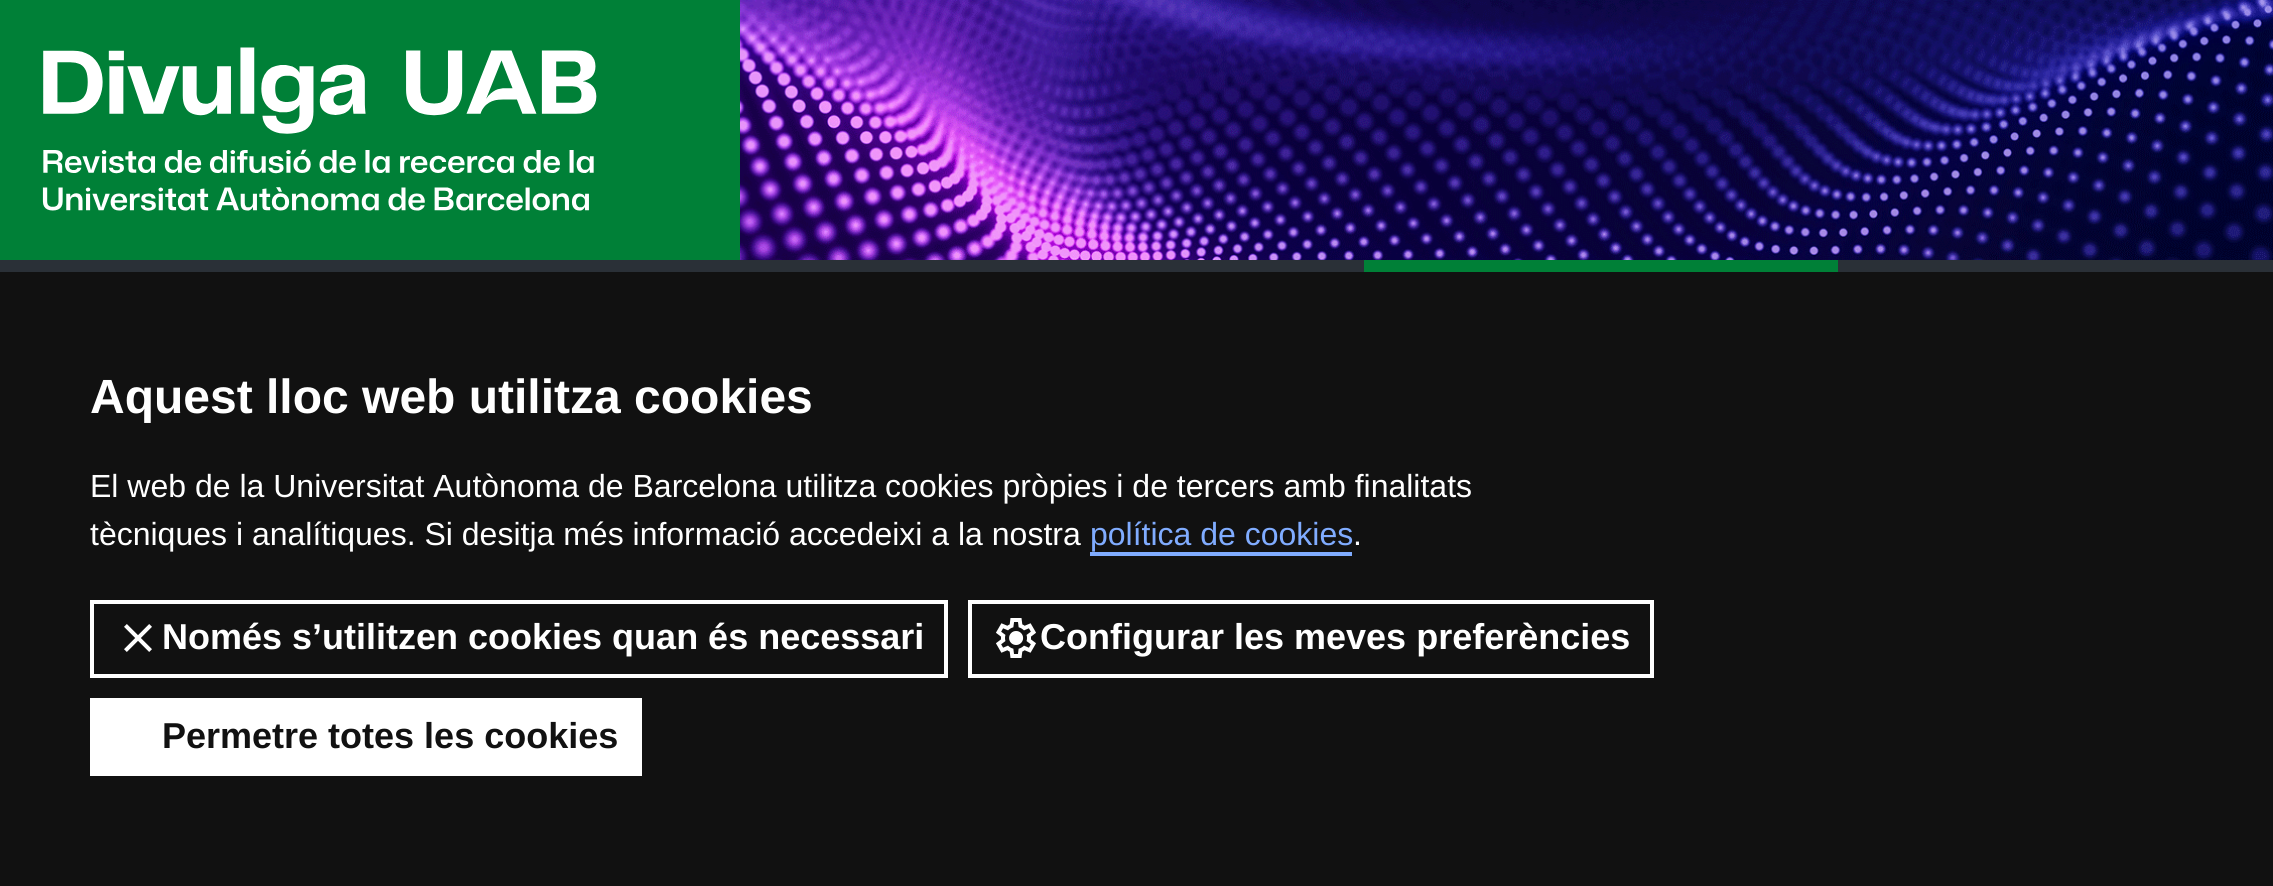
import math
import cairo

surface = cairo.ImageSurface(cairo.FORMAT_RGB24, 2273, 886)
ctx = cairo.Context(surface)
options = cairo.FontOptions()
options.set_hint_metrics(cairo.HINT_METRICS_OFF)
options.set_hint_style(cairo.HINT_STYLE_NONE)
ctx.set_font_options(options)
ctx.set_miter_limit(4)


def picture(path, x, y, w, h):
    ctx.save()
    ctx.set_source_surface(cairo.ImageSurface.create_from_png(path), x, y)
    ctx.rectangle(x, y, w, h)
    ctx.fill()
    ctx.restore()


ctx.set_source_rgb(1, 1, 1)
ctx.paint()
picture("img1.png", 740, 0, 1533, 260)
ctx.set_source_rgb(0, 0.502, 0.216)
ctx.rectangle(0, 0, 740, 260)
ctx.fill()
picture("img2.png", 42, 47, 555, 164)
ctx.set_source_rgb(0.165, 0.188, 0.216)
ctx.rectangle(0, 260, 1364, 12)
ctx.fill()
ctx.set_source_rgb(0, 0.502, 0.216)
ctx.rectangle(1364, 260, 474, 12)
ctx.fill()
ctx.set_source_rgb(0.165, 0.188, 0.216)
ctx.rectangle(1838, 260, 435, 12)
ctx.fill()
ctx.set_source_rgb(0.067, 0.067, 0.067)
ctx.rectangle(0, 272, 2273, 614)
ctx.fill()
ctx.select_font_face("Liberation Sans", cairo.FONT_SLANT_NORMAL, cairo.FONT_WEIGHT_BOLD)
ctx.set_font_size(48)
ctx.set_source_rgb(1, 1, 1)
ctx.move_to(90, 413)
ctx.show_text("Aquest lloc web utilitza cookies")
ctx.select_font_face("Liberation Sans")
ctx.set_font_size(32)
ctx.move_to(90, 497)
ctx.show_text("El web de la Universitat Autònoma de Barcelona utilitza cookies pròpies i de tercers amb finalitats")
ctx.move_to(90, 545)
ctx.show_text("tècniques i analítiques. Si desitja més informació accedeixi a la nostra")
ctx.set_source_rgb(0.502, 0.675, 1)
ctx.move_to(1090, 545)
ctx.show_text("política de cookies")
ctx.rectangle(1090, 552, 262, 4)
ctx.fill()
ctx.set_source_rgb(1, 1, 1)
ctx.move_to(1353, 545)
ctx.show_text(".")
ctx.rectangle(92, 602, 854, 74)
ctx.set_line_width(4)
ctx.stroke()
picture("img3.png", 124, 624, 28, 28)
ctx.select_font_face("Liberation Sans", cairo.FONT_SLANT_NORMAL, cairo.FONT_WEIGHT_BOLD)
ctx.set_font_size(36)
ctx.move_to(162, 649)
ctx.show_text("Només s’utilitzen cookies quan és necessari")
ctx.rectangle(970, 602, 682, 74)
ctx.stroke()
picture("img4.png", 996, 618, 40, 40)
ctx.move_to(1040, 649)
ctx.show_text("Configurar les meves preferències")
ctx.rectangle(90, 698, 552, 78)
ctx.fill()
ctx.set_source_rgb(0.067, 0.067, 0.067)
ctx.move_to(162, 748)
ctx.show_text("Permetre totes les cookies")
surface.write_to_png("page.png")
